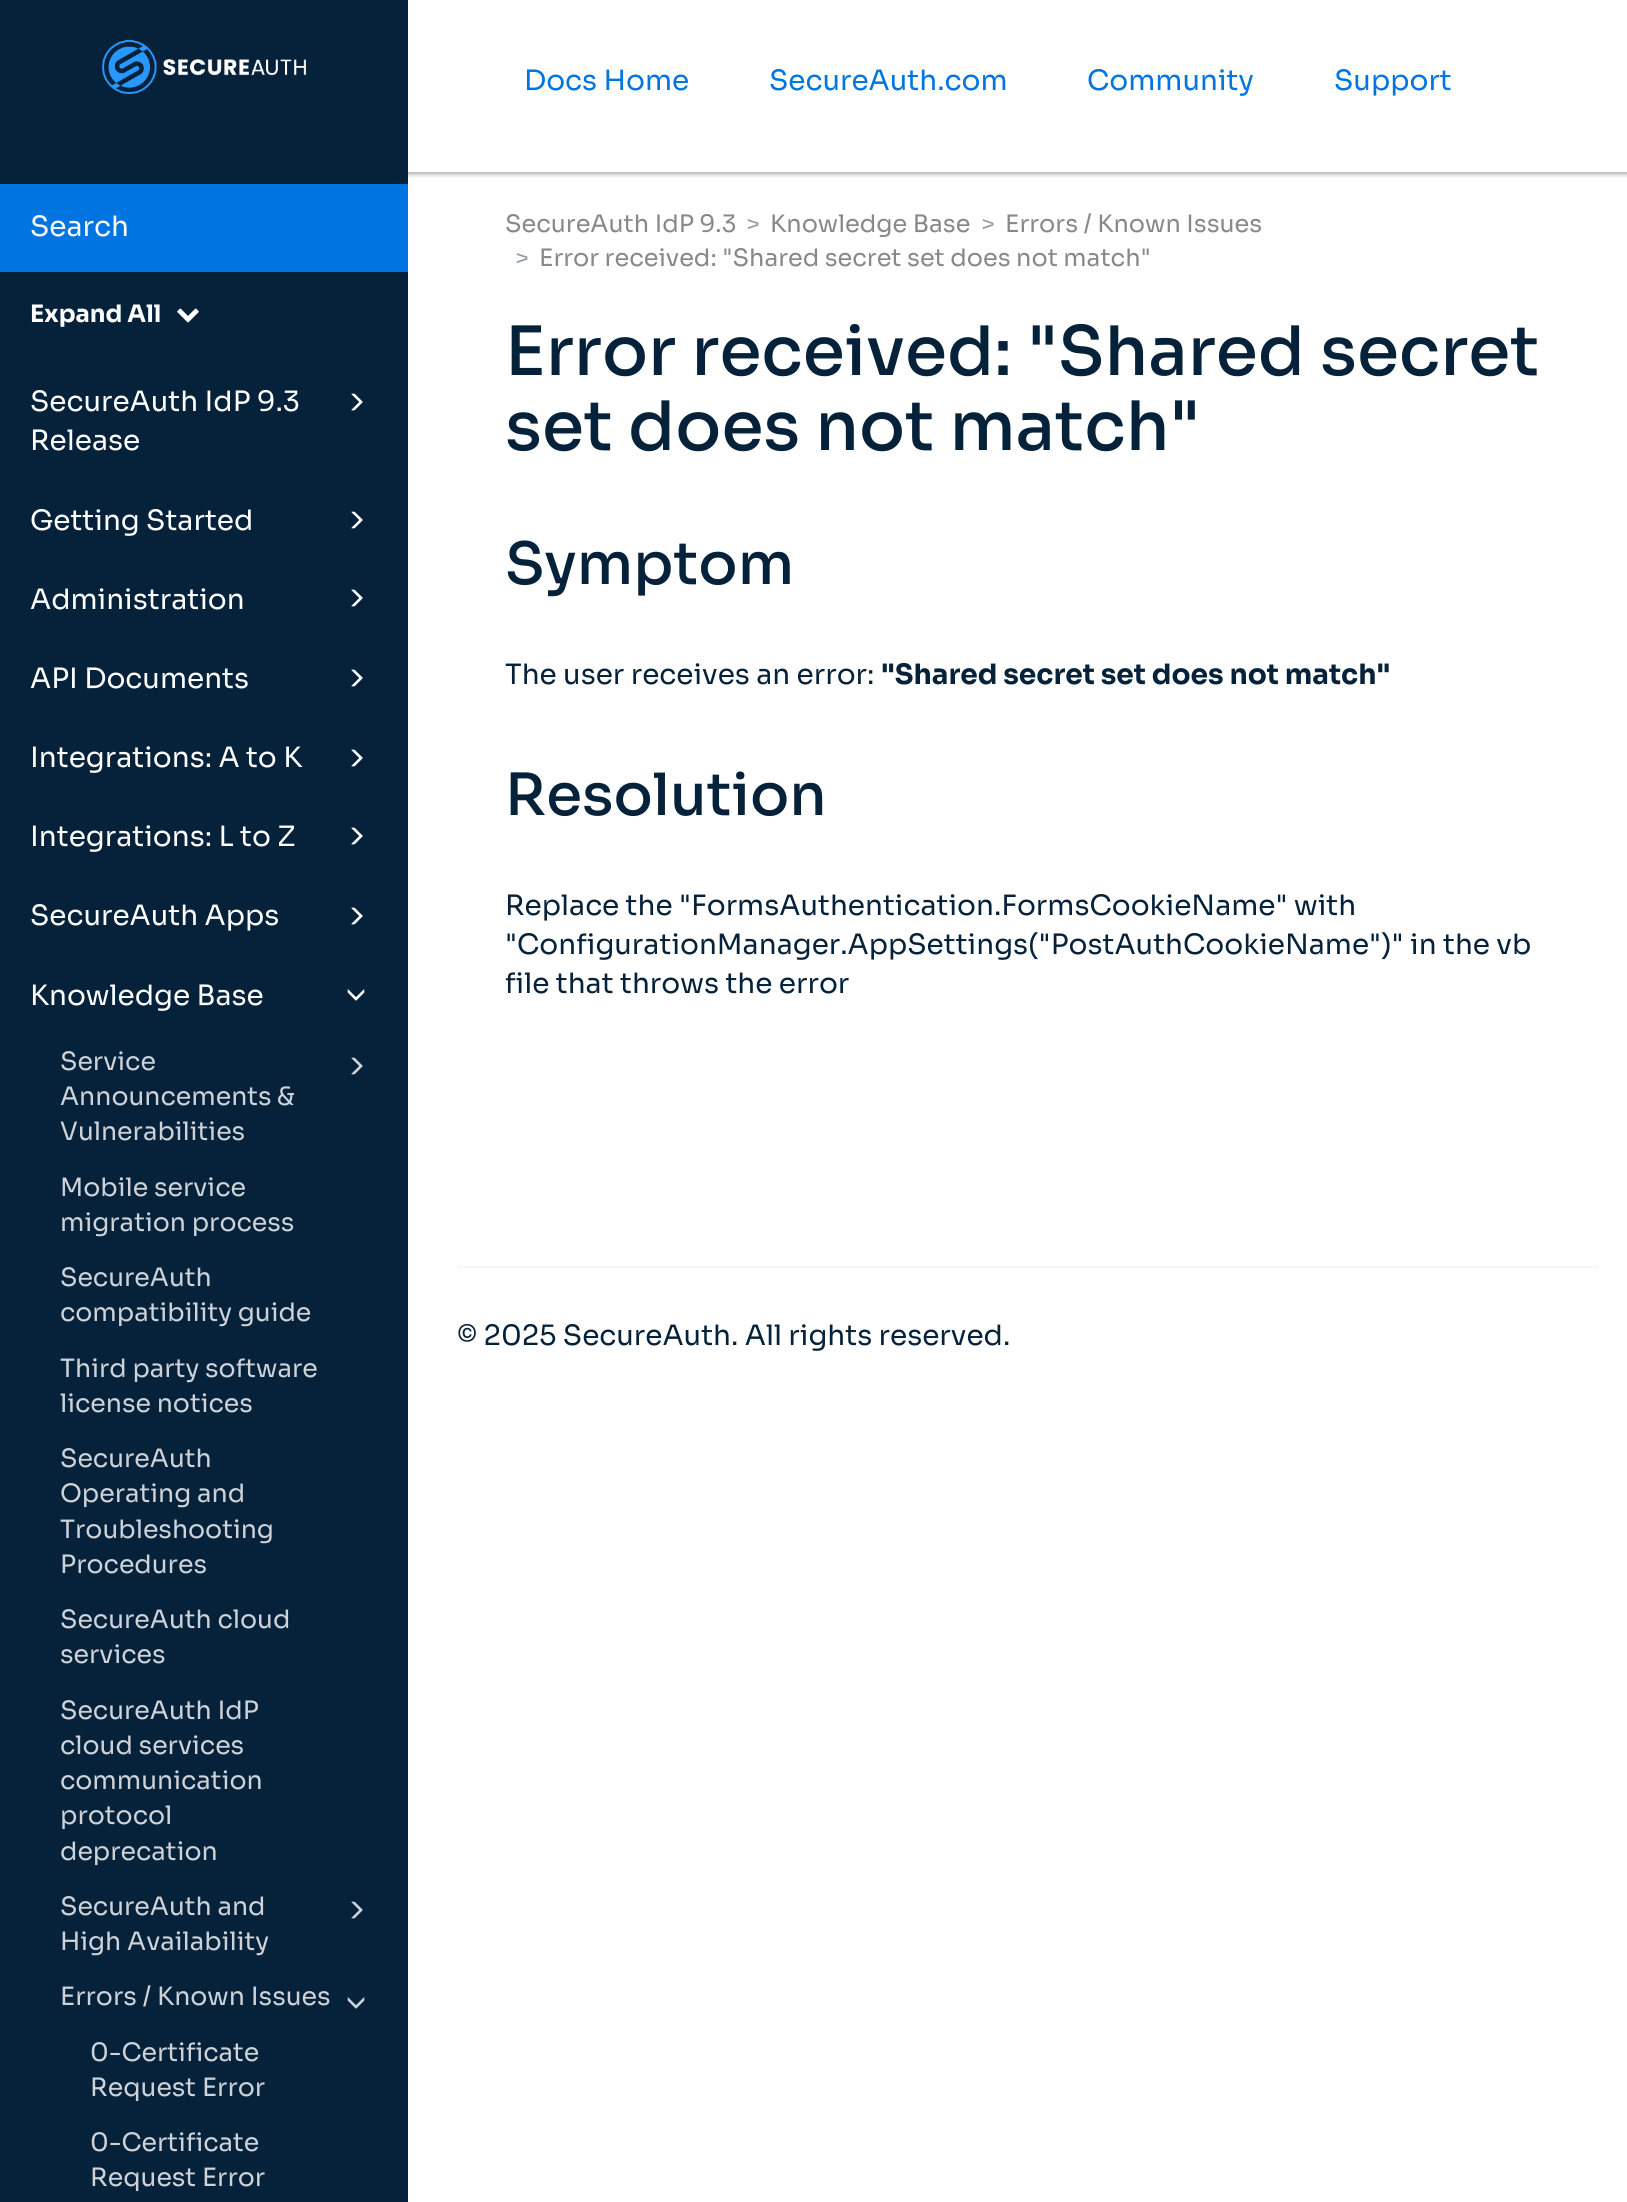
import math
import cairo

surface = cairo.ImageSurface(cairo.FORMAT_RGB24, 1627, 2202)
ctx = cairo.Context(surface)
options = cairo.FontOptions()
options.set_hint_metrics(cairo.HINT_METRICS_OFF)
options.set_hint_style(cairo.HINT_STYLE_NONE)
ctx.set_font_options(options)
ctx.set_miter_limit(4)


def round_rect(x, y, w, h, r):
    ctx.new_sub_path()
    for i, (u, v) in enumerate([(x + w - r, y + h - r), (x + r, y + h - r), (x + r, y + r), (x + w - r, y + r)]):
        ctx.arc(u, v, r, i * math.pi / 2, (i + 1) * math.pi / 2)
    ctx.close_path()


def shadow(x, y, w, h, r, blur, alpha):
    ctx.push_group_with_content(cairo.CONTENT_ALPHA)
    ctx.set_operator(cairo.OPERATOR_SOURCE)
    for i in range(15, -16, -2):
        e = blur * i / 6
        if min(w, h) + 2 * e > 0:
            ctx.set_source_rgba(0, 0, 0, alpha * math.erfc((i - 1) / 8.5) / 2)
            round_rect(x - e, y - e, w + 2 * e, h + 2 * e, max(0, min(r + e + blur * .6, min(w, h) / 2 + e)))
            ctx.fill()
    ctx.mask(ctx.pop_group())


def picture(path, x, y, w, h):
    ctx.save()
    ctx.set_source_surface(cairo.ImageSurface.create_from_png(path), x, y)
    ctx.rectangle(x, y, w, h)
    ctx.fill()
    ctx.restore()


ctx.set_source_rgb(1, 1, 1)
ctx.paint()
ctx.save()
ctx.rectangle(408, 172, 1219, 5)
ctx.clip()
ctx.set_source_rgb(0, 0, 0)
shadow(-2, -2, 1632, 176, 0, 5, 0.08)
ctx.restore()
ctx.save()
ctx.rectangle(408, 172, 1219, 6)
ctx.clip()
ctx.set_source_rgb(0, 0, 0)
shadow(-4, -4, 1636, 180, 0, 2, 0.1)
ctx.restore()
ctx.save()
ctx.rectangle(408, 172, 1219, 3)
ctx.clip()
ctx.set_source_rgb(0, 0, 0)
shadow(-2, -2, 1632, 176, 0, 1, 0.14)
ctx.restore()
ctx.set_source_rgb(0.024, 0.133, 0.231)
ctx.rectangle(0, 0, 408, 2202)
ctx.fill()
picture("img1.png", 102, 39, 204, 55)
ctx.set_source_rgb(0, 0.459, 0.886)
ctx.rectangle(0, 184, 408, 88)
ctx.fill()
ctx.select_font_face("Sora")
ctx.set_font_size(28)
ctx.set_source_rgb(0.965, 0.969, 0.973)
ctx.move_to(30, 236)
ctx.show_text("Search")
ctx.select_font_face("Sora", cairo.FONT_SLANT_NORMAL, cairo.FONT_WEIGHT_BOLD)
ctx.set_font_size(24)
ctx.set_source_rgb(1, 1, 1)
ctx.move_to(30, 322)
ctx.show_text("Expand All")
picture("img2.png", 177, 308, 22, 15)
ctx.select_font_face("Sora")
ctx.set_font_size(28)
ctx.move_to(30, 411)
ctx.show_text("SecureAuth IdP 9.3")
picture("img3.png", 351, 393, 12, 18)
ctx.move_to(30, 450)
ctx.show_text("Release")
ctx.move_to(30, 530)
ctx.show_text("Getting Started")
picture("img3.png", 351, 511, 12, 18)
ctx.move_to(30, 609)
ctx.show_text("Administration")
picture("img3.png", 351, 589, 12, 18)
ctx.move_to(30, 688)
ctx.show_text("API Documents")
picture("img3.png", 351, 669, 12, 18)
ctx.move_to(30, 767)
ctx.show_text("Integrations: A to K")
picture("img3.png", 351, 749, 12, 18)
ctx.move_to(30, 846)
ctx.show_text("Integrations: L to Z")
picture("img3.png", 351, 827, 12, 18)
ctx.move_to(30, 925)
ctx.show_text("SecureAuth Apps")
picture("img3.png", 351, 907, 12, 18)
ctx.move_to(30, 1005)
ctx.show_text("Knowledge Base")
picture("img4.png", 347, 989, 18, 12)
ctx.set_font_size(25.25)
ctx.set_source_rgb(0.804, 0.827, 0.847)
ctx.move_to(60, 1070)
ctx.show_text("Service")
picture("img5.png", 351, 1057, 12, 18)
ctx.move_to(60, 1105)
ctx.show_text("Announcements &")
ctx.move_to(60, 1140)
ctx.show_text("Vulnerabilities")
ctx.move_to(60, 1196)
ctx.show_text("Mobile service")
ctx.move_to(60, 1231)
ctx.show_text("migration process")
ctx.move_to(60, 1286)
ctx.show_text("SecureAuth")
ctx.move_to(60, 1321)
ctx.show_text("compatibility guide")
ctx.move_to(60, 1377)
ctx.show_text("Third party software")
ctx.move_to(60, 1412)
ctx.show_text("license notices")
ctx.move_to(60, 1467)
ctx.show_text("SecureAuth")
ctx.move_to(60, 1502)
ctx.show_text("Operating and")
ctx.move_to(60, 1538)
ctx.show_text("Troubleshooting")
ctx.move_to(60, 1573)
ctx.show_text("Procedures")
ctx.move_to(60, 1628)
ctx.show_text("SecureAuth cloud")
ctx.move_to(60, 1663)
ctx.show_text("services")
ctx.move_to(60, 1719)
ctx.show_text("SecureAuth IdP")
ctx.move_to(60, 1754)
ctx.show_text("cloud services")
ctx.move_to(60, 1789)
ctx.show_text("communication")
ctx.move_to(60, 1824)
ctx.show_text("protocol")
ctx.move_to(60, 1860)
ctx.show_text("deprecation")
ctx.move_to(60, 1915)
ctx.show_text("SecureAuth and")
picture("img5.png", 351, 1901, 12, 18)
ctx.move_to(60, 1950)
ctx.show_text("High Availability")
ctx.move_to(60, 2005)
ctx.show_text("Errors / Known Issues")
picture("img6.png", 347, 1997, 18, 12)
ctx.move_to(90, 2061)
ctx.show_text("0-Certificate")
ctx.move_to(90, 2096)
ctx.show_text("Request Error")
ctx.move_to(90, 2151)
ctx.show_text("0-Certificate")
ctx.move_to(90, 2186)
ctx.show_text("Request Error")
ctx.set_font_size(28)
ctx.set_source_rgb(0, 0.459, 0.886)
ctx.move_to(524, 90)
ctx.show_text("Docs Home")
ctx.move_to(769, 90)
ctx.show_text("SecureAuth.com")
ctx.move_to(1087, 90)
ctx.show_text("Community")
ctx.move_to(1334, 90)
ctx.show_text("Support")
ctx.set_font_size(24)
ctx.set_source_rgb(0.533, 0.533, 0.533)
ctx.move_to(505, 232)
ctx.show_text("SecureAuth IdP 9.3")
ctx.set_source_rgb(0.565, 0.62, 0.667)
ctx.move_to(746, 232)
ctx.show_text(">")
ctx.set_source_rgb(0.533, 0.533, 0.533)
ctx.move_to(770, 232)
ctx.show_text("Knowledge Base")
ctx.set_source_rgb(0.565, 0.62, 0.667)
ctx.move_to(981, 232)
ctx.show_text(">")
ctx.set_source_rgb(0.533, 0.533, 0.533)
ctx.move_to(1005, 232)
ctx.show_text("Errors / Known Issues")
ctx.set_source_rgb(0.565, 0.62, 0.667)
ctx.move_to(515, 266)
ctx.show_text(">")
ctx.set_source_rgb(0.533, 0.533, 0.533)
ctx.move_to(539, 266)
ctx.show_text("Error received: \"Shared secret set does not match\"")
ctx.select_font_face("Sora Medium")
ctx.set_font_size(68)
ctx.set_source_rgb(0.024, 0.133, 0.231)
ctx.move_to(505, 375)
ctx.show_text("Error received: \"Shared secret")
ctx.move_to(505, 450)
ctx.show_text("set does not match\"")
ctx.set_font_size(58)
ctx.move_to(505, 584)
ctx.show_text("Symptom")
ctx.select_font_face("Sora")
ctx.set_font_size(28)
ctx.move_to(505, 684)
ctx.show_text("The user receives an error:")
ctx.select_font_face("Sora", cairo.FONT_SLANT_NORMAL, cairo.FONT_WEIGHT_BOLD)
ctx.move_to(881, 684)
ctx.show_text("\"Shared secret set does not match\"")
ctx.select_font_face("Sora Medium")
ctx.set_font_size(58)
ctx.move_to(505, 815)
ctx.show_text("Resolution")
ctx.select_font_face("Sora")
ctx.set_font_size(28)
ctx.move_to(505, 915)
ctx.show_text("Replace the \"FormsAuthentication.FormsCookieName\" with")
ctx.move_to(505, 954)
ctx.show_text("\"ConfigurationManager.AppSettings(\"PostAuthCookieName\")\" in the vb")
ctx.move_to(505, 993)
ctx.show_text("file that throws the error")
ctx.set_source_rgb(0.961, 0.961, 0.961)
ctx.rectangle(458, 1266, 1140, 2)
ctx.fill()
ctx.set_source_rgb(0.024, 0.133, 0.231)
ctx.move_to(457, 1345)
ctx.show_text("© 2025 SecureAuth. All rights reserved.")
surface.write_to_png("page.png")
